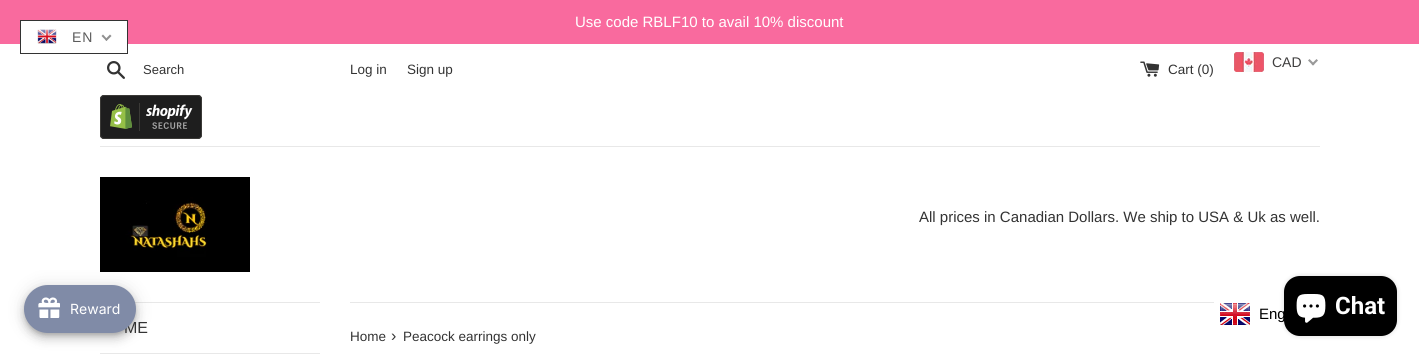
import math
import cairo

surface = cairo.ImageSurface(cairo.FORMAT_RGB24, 1419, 357)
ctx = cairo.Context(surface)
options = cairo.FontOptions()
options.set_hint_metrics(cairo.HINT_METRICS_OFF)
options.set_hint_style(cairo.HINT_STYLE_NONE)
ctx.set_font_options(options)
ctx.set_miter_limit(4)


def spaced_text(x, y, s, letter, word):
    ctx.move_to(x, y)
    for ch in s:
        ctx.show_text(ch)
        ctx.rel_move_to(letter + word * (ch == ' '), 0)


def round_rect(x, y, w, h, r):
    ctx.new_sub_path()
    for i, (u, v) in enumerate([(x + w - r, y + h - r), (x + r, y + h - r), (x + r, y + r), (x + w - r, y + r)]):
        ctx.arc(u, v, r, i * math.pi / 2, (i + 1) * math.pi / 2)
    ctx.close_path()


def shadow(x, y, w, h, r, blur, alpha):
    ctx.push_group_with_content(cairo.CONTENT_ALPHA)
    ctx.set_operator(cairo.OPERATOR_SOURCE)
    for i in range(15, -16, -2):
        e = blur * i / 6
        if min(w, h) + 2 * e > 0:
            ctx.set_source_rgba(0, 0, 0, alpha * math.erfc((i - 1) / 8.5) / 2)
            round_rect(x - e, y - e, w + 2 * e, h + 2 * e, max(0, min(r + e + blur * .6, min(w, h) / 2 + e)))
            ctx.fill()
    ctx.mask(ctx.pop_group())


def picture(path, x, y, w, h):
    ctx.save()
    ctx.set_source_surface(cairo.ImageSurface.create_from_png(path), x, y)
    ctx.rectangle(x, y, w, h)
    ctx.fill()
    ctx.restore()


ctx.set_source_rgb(1, 1, 1)
ctx.paint()
ctx.set_source_rgb(0.973, 0.416, 0.62)
ctx.rectangle(0, 0, 1419, 44)
ctx.fill()
ctx.set_source_rgb(1, 1, 1)
ctx.rectangle(21, 21, 106, 23)
ctx.fill()
ctx.rectangle(20.5, 20.5, 107, 33)
ctx.set_source_rgb(0.2, 0.2, 0.2)
ctx.set_line_width(1)
ctx.stroke()
picture("img1.png", 37, 29, 20, 15)
ctx.select_font_face("Liberation Sans")
ctx.set_font_size(14)
ctx.set_source_rgb(0.361, 0.361, 0.361)
spaced_text(72, 42, "EN", 1, 0)
ctx.set_source_rgb(0.565, 0.565, 0.565)
ctx.new_path()
ctx.move_to(110, 34.5)
ctx.line_to(111.5, 36)
ctx.line_to(106.5, 41)
ctx.line_to(105, 39.5)
ctx.close_path()
ctx.fill()
ctx.new_path()
ctx.move_to(103, 34.5)
ctx.line_to(107.5, 39.5)
ctx.line_to(106.5, 41)
ctx.line_to(101.5, 36)
ctx.close_path()
ctx.fill()
ctx.set_font_size(15)
ctx.set_source_rgb(1, 1, 1)
ctx.move_to(575, 27)
ctx.show_text("Use code RBLF10 to avail 10% discount")
picture("img2.png", 107, 61, 18, 18)
ctx.set_font_size(13)
ctx.set_source_rgb(0.2, 0.2, 0.2)
ctx.move_to(143, 74)
ctx.show_text("Search")
ctx.set_font_size(13.5)
ctx.move_to(350, 74)
ctx.show_text("Log in")
ctx.move_to(407, 74)
ctx.show_text("Sign up")
picture("img3.png", 1234, 52, 30, 20)
ctx.set_font_size(14)
ctx.set_source_rgb(0.251, 0.247, 0.247)
ctx.move_to(1272, 67)
ctx.show_text("CAD")
ctx.set_source_rgb(0.6, 0.6, 0.6)
ctx.new_path()
ctx.move_to(1316.5, 59)
ctx.line_to(1318, 60.5)
ctx.line_to(1313, 65.5)
ctx.line_to(1311.5, 64)
ctx.close_path()
ctx.fill()
ctx.new_path()
ctx.move_to(1309.5, 59)
ctx.line_to(1314.5, 64)
ctx.line_to(1313, 65.5)
ctx.line_to(1308, 60.5)
ctx.close_path()
ctx.fill()
picture("img4.png", 1140, 61, 20, 16)
ctx.set_font_size(13.5)
ctx.set_source_rgb(0.2, 0.2, 0.2)
ctx.move_to(1168, 74)
ctx.show_text("Cart (0)")
picture("img5.png", 100, 95, 102, 44)
ctx.set_source_rgb(0.91, 0.91, 0.91)
ctx.rectangle(100, 146, 1220, 1)
ctx.fill()
picture("img6.png", 100, 177, 150, 95)
ctx.set_font_size(15)
ctx.set_source_rgb(0.2, 0.2, 0.2)
ctx.move_to(919, 222)
ctx.show_text("All prices in Canadian Dollars. We ship to USA & Uk as well.")
ctx.set_source_rgb(0.91, 0.91, 0.91)
ctx.rectangle(135, 302, 185, 1)
ctx.fill()
ctx.rectangle(100, 353, 220, 1)
ctx.fill()
ctx.set_source_rgb(0, 0, 0)
shadow(24, 286, 112, 48, 24, 9, 0.12)
shadow(24, 291, 112, 48, 24, 5, 0.14)
shadow(25, 289, 110, 46, 23, 2.5, 0.2)
ctx.set_font_size(16)
ctx.set_source_rgb(0.2, 0.2, 0.2)
ctx.move_to(124, 333)
ctx.show_text("ME")
ctx.set_source_rgb(0.502, 0.545, 0.655)
round_rect(24, 285, 112, 48, 24)
ctx.fill()
picture("img7.png", 38, 297, 22, 21)
ctx.select_font_face("Inter")
ctx.set_font_size(14)
ctx.set_source_rgb(1, 1, 1)
ctx.move_to(70, 314)
ctx.show_text("Reward")
picture("img8.png", 1220, 303, 30, 22)
ctx.select_font_face("Liberation Sans")
ctx.set_font_size(15)
ctx.set_source_rgb(0, 0, 0)
ctx.move_to(1259, 319)
ctx.show_text("Eng")
ctx.set_source_rgb(0, 0, 0)
shadow(1284, 276, 113, 60, 16, 2.5, 0.15)
ctx.set_source_rgb(0, 0, 0)
round_rect(1284, 276, 113, 60, 16)
ctx.fill()
picture("img9.png", 1296, 294, 30, 29)
ctx.select_font_face("Roboto", cairo.FONT_SLANT_NORMAL, cairo.FONT_WEIGHT_BOLD)
ctx.set_font_size(24)
ctx.set_source_rgb(1, 1, 1)
ctx.move_to(1335, 314)
ctx.show_text("Chat")
ctx.set_source_rgb(0.91, 0.91, 0.91)
ctx.rectangle(350, 302, 864, 1)
ctx.fill()
ctx.select_font_face("Liberation Sans")
ctx.set_font_size(13.5)
ctx.set_source_rgb(0.2, 0.2, 0.2)
ctx.move_to(350, 341)
ctx.show_text("Home")
ctx.set_font_size(16)
ctx.move_to(391, 341)
ctx.show_text("›")
ctx.set_font_size(13.5)
ctx.move_to(403, 341)
ctx.show_text("Peacock earrings only")
surface.write_to_png("page.png")
